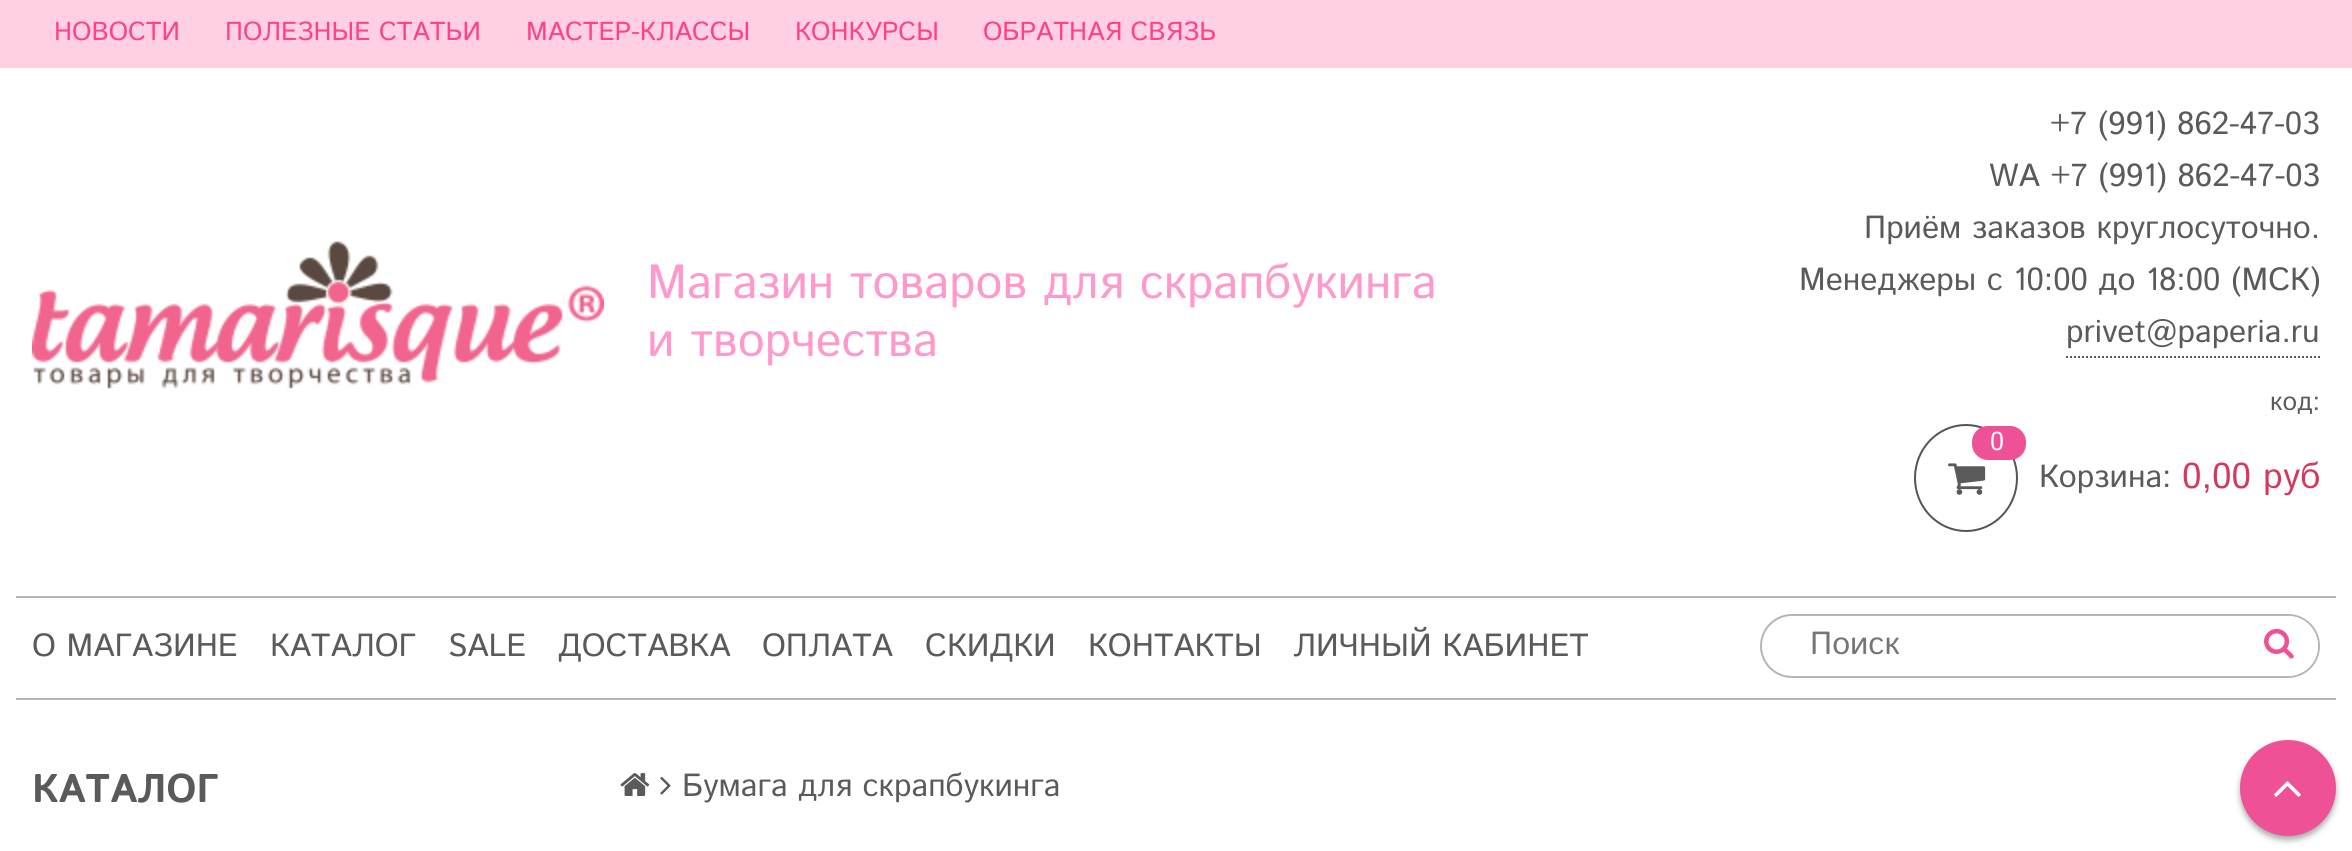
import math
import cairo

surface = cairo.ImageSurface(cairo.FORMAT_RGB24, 2352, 851)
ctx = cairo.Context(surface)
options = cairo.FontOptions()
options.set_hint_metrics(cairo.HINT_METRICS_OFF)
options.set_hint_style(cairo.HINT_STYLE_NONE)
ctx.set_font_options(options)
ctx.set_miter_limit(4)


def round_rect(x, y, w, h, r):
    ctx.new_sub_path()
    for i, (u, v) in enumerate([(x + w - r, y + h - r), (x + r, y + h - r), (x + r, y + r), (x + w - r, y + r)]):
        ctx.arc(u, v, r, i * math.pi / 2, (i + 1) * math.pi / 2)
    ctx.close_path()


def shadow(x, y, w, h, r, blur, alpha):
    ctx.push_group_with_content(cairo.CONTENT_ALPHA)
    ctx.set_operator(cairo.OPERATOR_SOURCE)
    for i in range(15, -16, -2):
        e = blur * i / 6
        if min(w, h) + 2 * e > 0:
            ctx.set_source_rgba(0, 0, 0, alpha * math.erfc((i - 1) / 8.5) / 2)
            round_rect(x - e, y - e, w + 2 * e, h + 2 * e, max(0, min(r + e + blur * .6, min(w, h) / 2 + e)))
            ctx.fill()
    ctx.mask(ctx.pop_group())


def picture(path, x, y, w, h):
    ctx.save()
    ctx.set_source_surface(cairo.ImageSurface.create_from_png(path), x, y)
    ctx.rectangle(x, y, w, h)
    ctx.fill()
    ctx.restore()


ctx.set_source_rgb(1, 1, 1)
ctx.paint()
ctx.set_source_rgb(1, 0.812, 0.894)
ctx.rectangle(0, 0, 2352, 68)
ctx.fill()
ctx.select_font_face("Istok Web")
ctx.set_font_size(26)
ctx.set_source_rgb(1, 0.259, 0.529)
ctx.move_to(54, 40)
ctx.show_text("НОВОСТИ")
ctx.move_to(225, 40)
ctx.show_text("ПОЛЕЗНЫЕ СТАТЬИ")
ctx.move_to(526, 40)
ctx.show_text("МАСТЕР-КЛАССЫ")
ctx.move_to(795, 40)
ctx.show_text("КОНКУРСЫ")
ctx.move_to(983, 40)
ctx.show_text("ОБРАТНАЯ СВЯЗЬ")
picture("img1.png", 32, 241, 572, 148)
ctx.set_font_size(48)
ctx.set_source_rgb(1, 0.6, 0.8)
ctx.move_to(647, 298)
ctx.show_text("Магазин товаров для скрапбукинга")
ctx.move_to(647, 356)
ctx.show_text("и творчества")
ctx.set_font_size(32)
ctx.set_source_rgb(0.353, 0.353, 0.353)
ctx.move_to(2050, 134)
ctx.show_text("+7 (991) 862-47-03")
ctx.move_to(1989, 186)
ctx.show_text("WA +7 (991) 862-47-03")
ctx.move_to(1864, 238)
ctx.show_text("Приём заказов круглосуточно.")
ctx.move_to(1799, 290)
ctx.show_text("Менеджеры с 10:00 до 18:00 (МСК)")
ctx.move_to(2066, 342)
ctx.show_text("privet@paperia.ru")
ctx.new_path()
ctx.move_to(2066, 357)
ctx.line_to(2320, 357)
ctx.set_dash([2, 2])
ctx.stroke()
ctx.set_font_size(26)
ctx.move_to(2270, 410)
ctx.show_text("код:")
ctx.new_path()
ctx.move_to(1966, 425)
ctx.curve_to(1994, 425, 2017, 448.5, 2017, 478)
ctx.curve_to(2017, 507.5, 1994, 531, 1966, 531)
ctx.curve_to(1938, 531, 1915, 507.5, 1915, 478)
ctx.curve_to(1915, 448.5, 1938, 425, 1966, 425)
ctx.close_path()
ctx.set_source_rgb(0.333, 0.333, 0.333)
ctx.set_dash([])
ctx.stroke()
ctx.set_source_rgb(0.937, 0.318, 0.588)
round_rect(1972, 426, 54, 34, 16)
ctx.fill()
ctx.set_source_rgb(1, 1, 1)
ctx.move_to(1990, 450)
ctx.show_text("0")
picture("img2.png", 1948, 463, 38, 32)
ctx.set_font_size(32)
ctx.set_source_rgb(0.353, 0.353, 0.353)
ctx.move_to(2039, 487)
ctx.show_text("Корзина:")
ctx.set_font_size(36)
ctx.set_source_rgb(0.831, 0.224, 0.365)
ctx.move_to(2182, 488)
ctx.show_text("0,00 руб")
ctx.set_source_rgb(0.71, 0.71, 0.71)
ctx.rectangle(16, 596, 2320, 2)
ctx.fill()
ctx.rectangle(16, 698, 2320, 2)
ctx.fill()
ctx.set_font_size(32)
ctx.set_source_rgb(0.353, 0.353, 0.353)
ctx.move_to(32, 656)
ctx.show_text("О МАГАЗИНЕ")
ctx.move_to(270, 656)
ctx.show_text("КАТАЛОГ")
ctx.move_to(448, 656)
ctx.show_text("SALE")
ctx.move_to(558, 656)
ctx.show_text("ДОСТАВКА")
ctx.move_to(762, 656)
ctx.show_text("ОПЛАТА")
ctx.move_to(925, 656)
ctx.show_text("СКИДКИ")
ctx.move_to(1088, 656)
ctx.show_text("КОНТАКТЫ")
ctx.move_to(1293, 656)
ctx.show_text("ЛИЧНЫЙ КАБИНЕТ")
round_rect(1761, 615, 558, 62, 31)
ctx.set_source_rgb(0.71, 0.71, 0.71)
ctx.stroke()
ctx.set_source_rgb(0.459, 0.459, 0.459)
ctx.move_to(1810, 654)
ctx.show_text("Поиск")
ctx.set_source_rgb(1, 1, 1)
ctx.new_path()
ctx.move_to(2238, 616)
ctx.line_to(2288, 616)
ctx.curve_to(2304.5, 616, 2318, 629.5, 2318, 646)
ctx.curve_to(2318, 662.5, 2304.5, 676, 2288, 676)
ctx.line_to(2238, 676)
ctx.close_path()
ctx.fill()
picture("img3.png", 2264, 628, 30, 31)
ctx.select_font_face("Istok Web", cairo.FONT_SLANT_NORMAL, cairo.FONT_WEIGHT_BOLD)
ctx.set_font_size(40)
ctx.set_source_rgb(0.353, 0.353, 0.353)
ctx.move_to(32, 802)
ctx.show_text("КАТАЛОГ")
picture("img4.png", 620, 773, 30, 23)
picture("img5.png", 660, 776, 11, 19)
ctx.select_font_face("Istok Web")
ctx.set_font_size(32)
ctx.move_to(682, 796)
ctx.show_text("Бумага для скрапбукинга")
ctx.set_source_rgb(0.2, 0.2, 0.2)
shadow(2240, 744, 96, 96, 48, 3, 0.42)
ctx.set_source_rgb(0.937, 0.318, 0.588)
ctx.arc(2288, 788, 46, 0, 2 * math.pi)
ctx.fill_preserve()
ctx.set_line_width(4)
ctx.stroke()
picture("img6.png", 2274, 781, 27, 16)
surface.write_to_png("page.png")
